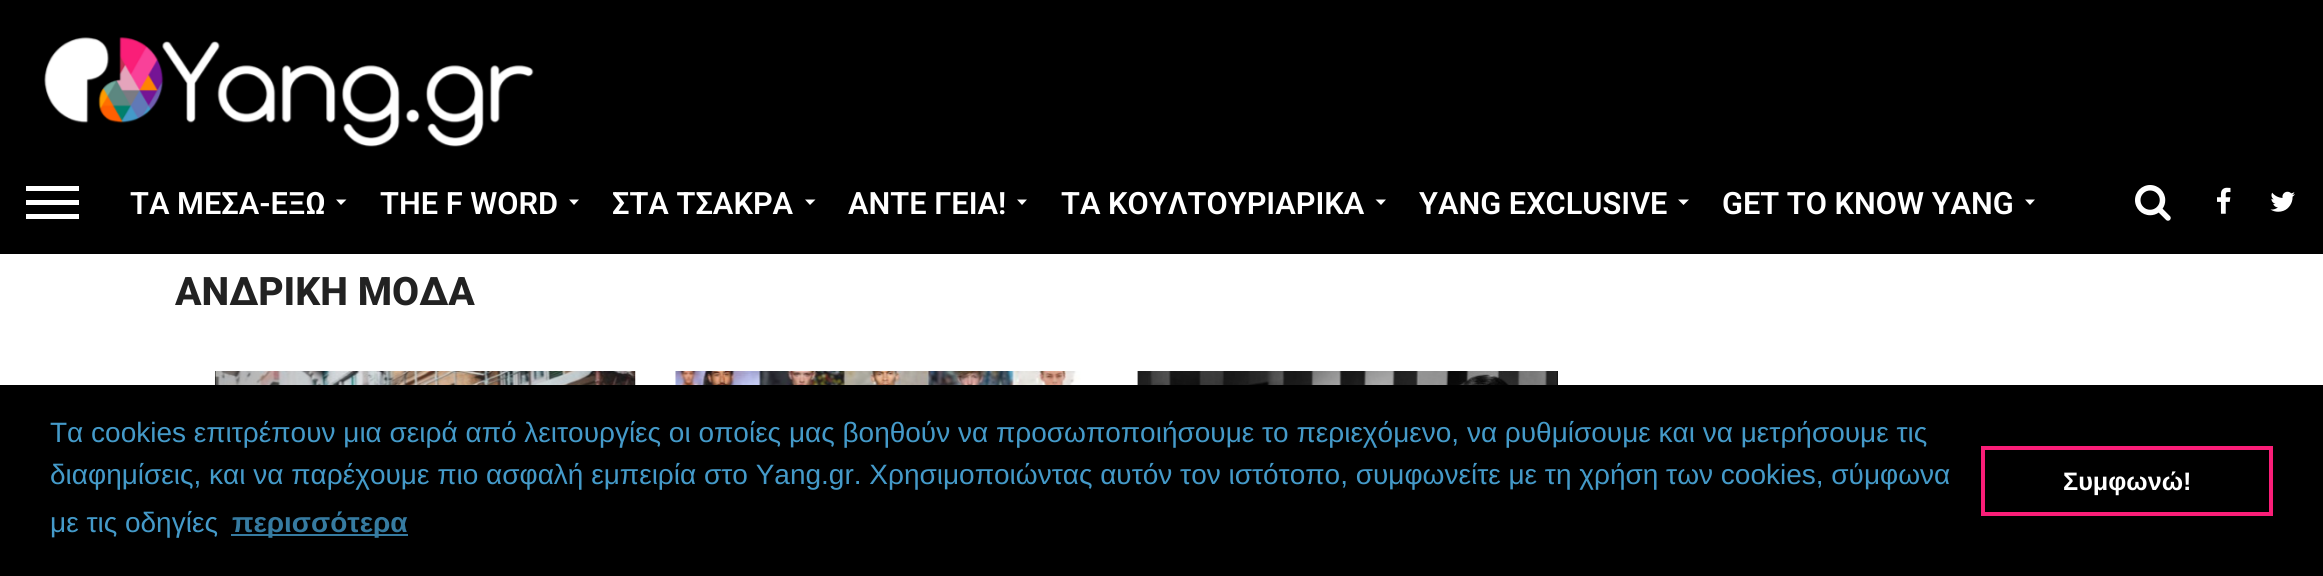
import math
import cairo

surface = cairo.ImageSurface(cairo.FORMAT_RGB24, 2323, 576)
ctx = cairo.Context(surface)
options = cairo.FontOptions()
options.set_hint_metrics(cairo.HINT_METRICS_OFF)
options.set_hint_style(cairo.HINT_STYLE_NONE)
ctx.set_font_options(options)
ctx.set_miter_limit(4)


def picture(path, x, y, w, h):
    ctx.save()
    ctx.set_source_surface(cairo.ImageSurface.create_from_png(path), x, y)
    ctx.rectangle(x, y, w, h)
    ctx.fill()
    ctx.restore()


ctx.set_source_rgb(1, 1, 1)
ctx.paint()
ctx.set_source_rgb(0, 0, 0)
ctx.rectangle(0, 0, 2323, 254)
ctx.fill()
picture("img1.png", 44, 37, 490, 110)
ctx.set_source_rgb(1, 1, 1)
ctx.rectangle(26, 186, 53, 5)
ctx.fill()
ctx.rectangle(26, 200, 53, 5)
ctx.fill()
ctx.rectangle(26, 214, 53, 5)
ctx.fill()
ctx.select_font_face("Roboto SemiBold")
ctx.set_font_size(30.75)
ctx.move_to(130, 214)
ctx.show_text("ΤΑ ΜΕΣΑ-ΕΞΩ")
ctx.new_path()
ctx.move_to(336, 199.5)
ctx.line_to(346.5, 199.5)
ctx.line_to(341, 205)
ctx.close_path()
ctx.fill()
ctx.move_to(380, 214)
ctx.show_text("THE F WORD")
ctx.new_path()
ctx.move_to(569, 199.5)
ctx.line_to(579, 199.5)
ctx.line_to(574, 205)
ctx.close_path()
ctx.fill()
ctx.move_to(612, 214)
ctx.show_text("ΣΤΑ ΤΣΑΚΡΑ")
ctx.new_path()
ctx.move_to(805, 199.5)
ctx.line_to(815.5, 199.5)
ctx.line_to(810, 205)
ctx.close_path()
ctx.fill()
ctx.move_to(848, 214)
ctx.show_text("ΑΝΤΕ ΓΕΙΑ!")
ctx.new_path()
ctx.move_to(1017, 199.5)
ctx.line_to(1027, 199.5)
ctx.line_to(1022, 205)
ctx.close_path()
ctx.fill()
ctx.move_to(1061, 214)
ctx.show_text("ΤΑ ΚΟΥΛΤΟΥΡΙΑΡΙΚΑ")
ctx.new_path()
ctx.move_to(1375.5, 199.5)
ctx.line_to(1386, 199.5)
ctx.line_to(1381, 205)
ctx.close_path()
ctx.fill()
ctx.move_to(1419, 214)
ctx.show_text("YANG EXCLUSIVE")
ctx.new_path()
ctx.move_to(1678, 199.5)
ctx.line_to(1689, 199.5)
ctx.line_to(1683.5, 205)
ctx.close_path()
ctx.fill()
ctx.move_to(1722, 214)
ctx.show_text("GET TO KNOW YANG")
ctx.new_path()
ctx.move_to(2025, 199.5)
ctx.line_to(2035, 199.5)
ctx.line_to(2030, 205)
ctx.close_path()
ctx.fill()
picture("img2.png", 2135, 185, 36, 36)
picture("img3.png", 2217, 187, 14, 27)
picture("img4.png", 2270, 191, 25, 21)
ctx.select_font_face("Roboto ExtraBold")
ctx.set_font_size(39.25)
ctx.set_source_rgb(0.133, 0.133, 0.133)
ctx.move_to(175, 305)
ctx.show_text("ΑΝΔΡΙΚΗ ΜΟΔΑ")
ctx.set_source_rgb(0, 0, 0)
ctx.rectangle(215, 371, 420, 14)
ctx.fill()
picture("img5.png", 214, 371, 422, 14)
picture("img6.png", 675, 371, 423, 14)
ctx.rectangle(1138, 371, 420, 14)
ctx.fill()
picture("img7.png", 1137, 371, 421, 14)
ctx.rectangle(0, 385, 2323, 191)
ctx.fill()
ctx.select_font_face("Liberation Sans")
ctx.set_font_size(28)
ctx.set_source_rgb(0.267, 0.604, 0.788)
ctx.move_to(50, 442)
ctx.show_text("Τα cookies επιτρέπουν μια σειρά από λειτουργίες οι οποίες μας βοηθούν να προσωποποιήσουμε το περιεχόμενο, να ρυθμίσουμε και να μετρήσουμε τις")
ctx.move_to(50, 484)
ctx.show_text("διαφημίσεις, και να παρέχουμε πιο ασφαλή εμπειρία στο Yang.gr. Χρησιμοποιώντας αυτόν τον ιστότοπο, συμφωνείτε με τη χρήση των cookies, σύμφωνα")
ctx.move_to(50, 532)
ctx.show_text("με τις οδηγίες")
ctx.set_source_rgb(0.212, 0.482, 0.631)
ctx.rectangle(231, 534, 177, 2)
ctx.fill()
ctx.select_font_face("Liberation Sans", cairo.FONT_SLANT_NORMAL, cairo.FONT_WEIGHT_BOLD)
ctx.move_to(232, 532)
ctx.show_text("περισσότερα")
ctx.rectangle(1983, 448, 288, 66)
ctx.set_source_rgb(0.98, 0.118, 0.471)
ctx.set_line_width(4)
ctx.stroke()
ctx.set_font_size(25.25)
ctx.set_source_rgb(1, 1, 1)
ctx.move_to(2063, 490)
ctx.show_text("Συμφωνώ!")
surface.write_to_png("page.png")
